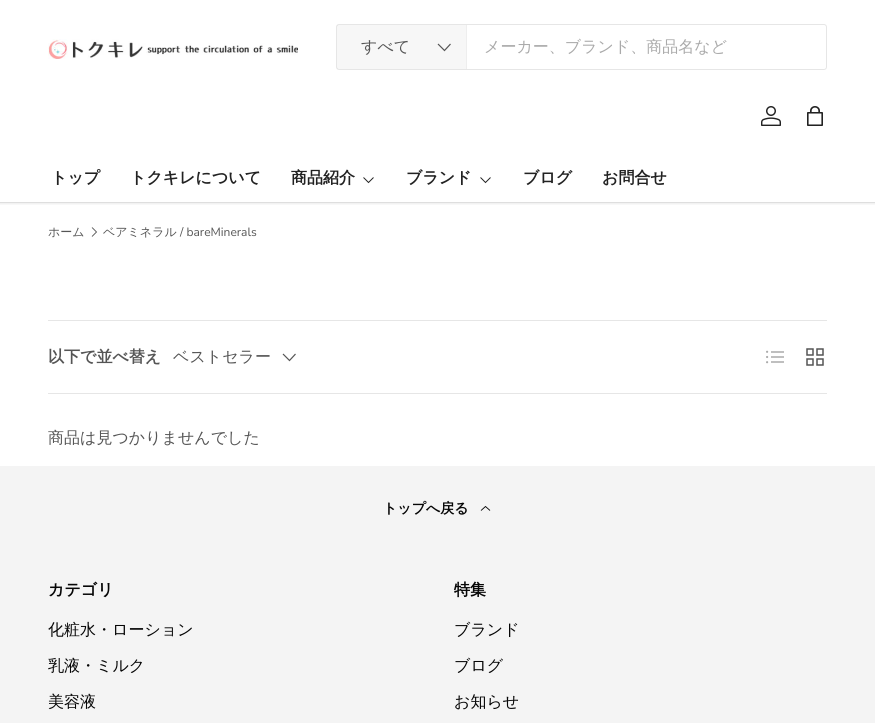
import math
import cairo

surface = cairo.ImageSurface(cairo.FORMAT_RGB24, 875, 723)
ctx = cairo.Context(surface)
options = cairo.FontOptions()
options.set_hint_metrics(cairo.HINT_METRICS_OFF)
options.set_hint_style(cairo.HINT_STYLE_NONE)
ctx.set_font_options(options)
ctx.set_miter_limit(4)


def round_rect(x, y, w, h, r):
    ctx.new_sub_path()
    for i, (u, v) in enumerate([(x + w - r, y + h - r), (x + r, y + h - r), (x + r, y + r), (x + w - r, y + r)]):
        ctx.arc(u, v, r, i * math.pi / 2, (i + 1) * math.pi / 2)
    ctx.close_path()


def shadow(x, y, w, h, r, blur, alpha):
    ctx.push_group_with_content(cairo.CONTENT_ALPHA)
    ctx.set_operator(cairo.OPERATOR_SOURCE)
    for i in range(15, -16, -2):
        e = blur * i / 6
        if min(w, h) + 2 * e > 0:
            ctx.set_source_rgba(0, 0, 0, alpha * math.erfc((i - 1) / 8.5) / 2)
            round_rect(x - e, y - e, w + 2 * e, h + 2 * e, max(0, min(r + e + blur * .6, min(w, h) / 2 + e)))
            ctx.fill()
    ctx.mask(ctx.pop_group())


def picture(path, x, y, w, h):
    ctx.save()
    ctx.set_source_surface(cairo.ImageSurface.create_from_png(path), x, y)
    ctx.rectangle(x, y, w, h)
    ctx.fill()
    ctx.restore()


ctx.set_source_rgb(1, 1, 1)
ctx.paint()
ctx.save()
ctx.rectangle(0, 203, 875, 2)
ctx.clip()
ctx.set_source_rgb(0, 0, 0)
shadow(-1, -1, 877, 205, 0, 1.5, 0.08)
ctx.restore()
picture("img1.png", 48, 39, 250, 20)
round_rect(336.5, 24.5, 490, 45, 2.5)
ctx.set_source_rgb(0.902, 0.902, 0.902)
ctx.set_line_width(1)
ctx.stroke()
ctx.set_source_rgba(0.333, 0.333, 0.333, 0.05)
ctx.rectangle(337, 25, 129, 44)
ctx.fill()
ctx.set_source_rgb(0.933, 0.933, 0.933)
ctx.rectangle(466, 25, 1, 44)
ctx.fill()
ctx.select_font_face("WenQuanYi Zen Hei Medium")
ctx.set_font_size(16)
ctx.set_source_rgb(0.333, 0.333, 0.333)
ctx.move_to(361, 52)
ctx.show_text("すべて")
ctx.new_path()
ctx.move_to(450.5, 44)
ctx.line_to(444.5, 50.5)
ctx.line_to(438, 44)
ctx.set_line_width(1.2)
ctx.stroke()
ctx.set_source_rgb(0.667, 0.667, 0.667)
ctx.move_to(484, 52)
ctx.show_text("メーカー、ブランド、商品名など")
picture("img2.png", 761, 106, 20, 20)
picture("img3.png", 807, 106, 16, 20)
ctx.select_font_face("WenQuanYi Zen Hei", cairo.FONT_SLANT_NORMAL, cairo.FONT_WEIGHT_BOLD)
ctx.set_source_rgb(0.133, 0.133, 0.133)
ctx.move_to(51, 183)
ctx.show_text("トップ")
ctx.move_to(130, 183)
ctx.show_text("トクキレについて")
ctx.move_to(291, 183)
ctx.show_text("商品紹介")
ctx.new_path()
ctx.move_to(373.5, 177.5)
ctx.line_to(368.5, 182.5)
ctx.line_to(363.5, 177.5)
ctx.set_line_width(1)
ctx.stroke()
ctx.move_to(406, 183)
ctx.show_text("ブランド")
ctx.new_path()
ctx.move_to(490.5, 177.5)
ctx.line_to(485.5, 182.5)
ctx.line_to(480.5, 177.5)
ctx.stroke()
ctx.move_to(523, 183)
ctx.show_text("ブログ")
ctx.move_to(602, 183)
ctx.show_text("お問合せ")
ctx.set_source_rgb(0.871, 0.871, 0.871)
ctx.rectangle(0, 202, 875, 1)
ctx.fill()
ctx.select_font_face("WenQuanYi Zen Hei Medium")
ctx.set_font_size(12)
ctx.set_source_rgb(0.333, 0.333, 0.333)
ctx.move_to(48, 236)
ctx.show_text("ホーム")
ctx.new_path()
ctx.move_to(92, 227.5)
ctx.line_to(96.5, 232)
ctx.line_to(92, 236.5)
ctx.set_line_width(0.9)
ctx.stroke()
ctx.move_to(103, 236)
ctx.show_text("ベアミネラル")
ctx.select_font_face("Nunito Sans")
ctx.move_to(180, 236)
ctx.show_text("/ bareMinerals")
ctx.set_source_rgb(0.902, 0.902, 0.902)
ctx.rectangle(48, 320, 779, 1)
ctx.fill()
ctx.rectangle(48, 393, 779, 1)
ctx.fill()
ctx.select_font_face("WenQuanYi Zen Hei", cairo.FONT_SLANT_NORMAL, cairo.FONT_WEIGHT_BOLD)
ctx.set_font_size(16)
ctx.set_source_rgb(0.333, 0.333, 0.333)
ctx.move_to(48, 362)
ctx.show_text("以下で並べ替え")
ctx.select_font_face("WenQuanYi Zen Hei Medium")
ctx.move_to(173, 362)
ctx.show_text("ベストセラー")
ctx.new_path()
ctx.move_to(295.5, 354)
ctx.line_to(289.5, 360.5)
ctx.line_to(283, 354)
ctx.set_line_width(1.2)
ctx.stroke()
picture("img4.png", 766, 350, 18, 14)
picture("img5.png", 806, 348, 18, 18)
ctx.move_to(48, 443)
ctx.show_text("商品は見つかりませんでした")
ctx.set_source_rgb(0.957, 0.957, 0.957)
ctx.rectangle(0, 466, 875, 257)
ctx.fill()
ctx.select_font_face("WenQuanYi Zen Hei", cairo.FONT_SLANT_NORMAL, cairo.FONT_WEIGHT_BOLD)
ctx.set_font_size(14)
ctx.set_source_rgb(0.027, 0.027, 0.027)
ctx.move_to(383, 513)
ctx.show_text("トップへ戻る")
ctx.new_path()
ctx.move_to(481, 510.5)
ctx.line_to(485.5, 506.5)
ctx.line_to(490, 510.5)
ctx.set_line_width(0.9)
ctx.stroke()
ctx.set_font_size(16)
ctx.move_to(48, 595)
ctx.show_text("カテゴリ")
ctx.select_font_face("WenQuanYi Zen Hei Medium")
ctx.move_to(48, 635)
ctx.show_text("化粧水・ローション")
ctx.move_to(48, 671)
ctx.show_text("乳液・ミルク")
ctx.move_to(48, 707)
ctx.show_text("美容液")
ctx.save()
ctx.rectangle(454, 578, 373, 40)
ctx.clip()
ctx.select_font_face("WenQuanYi Zen Hei", cairo.FONT_SLANT_NORMAL, cairo.FONT_WEIGHT_BOLD)
ctx.move_to(454, 595)
ctx.show_text("特集")
ctx.restore()
ctx.move_to(454, 635)
ctx.show_text("ブランド")
ctx.move_to(454, 671)
ctx.show_text("ブログ")
ctx.move_to(454, 707)
ctx.show_text("お知らせ")
surface.write_to_png("page.png")
